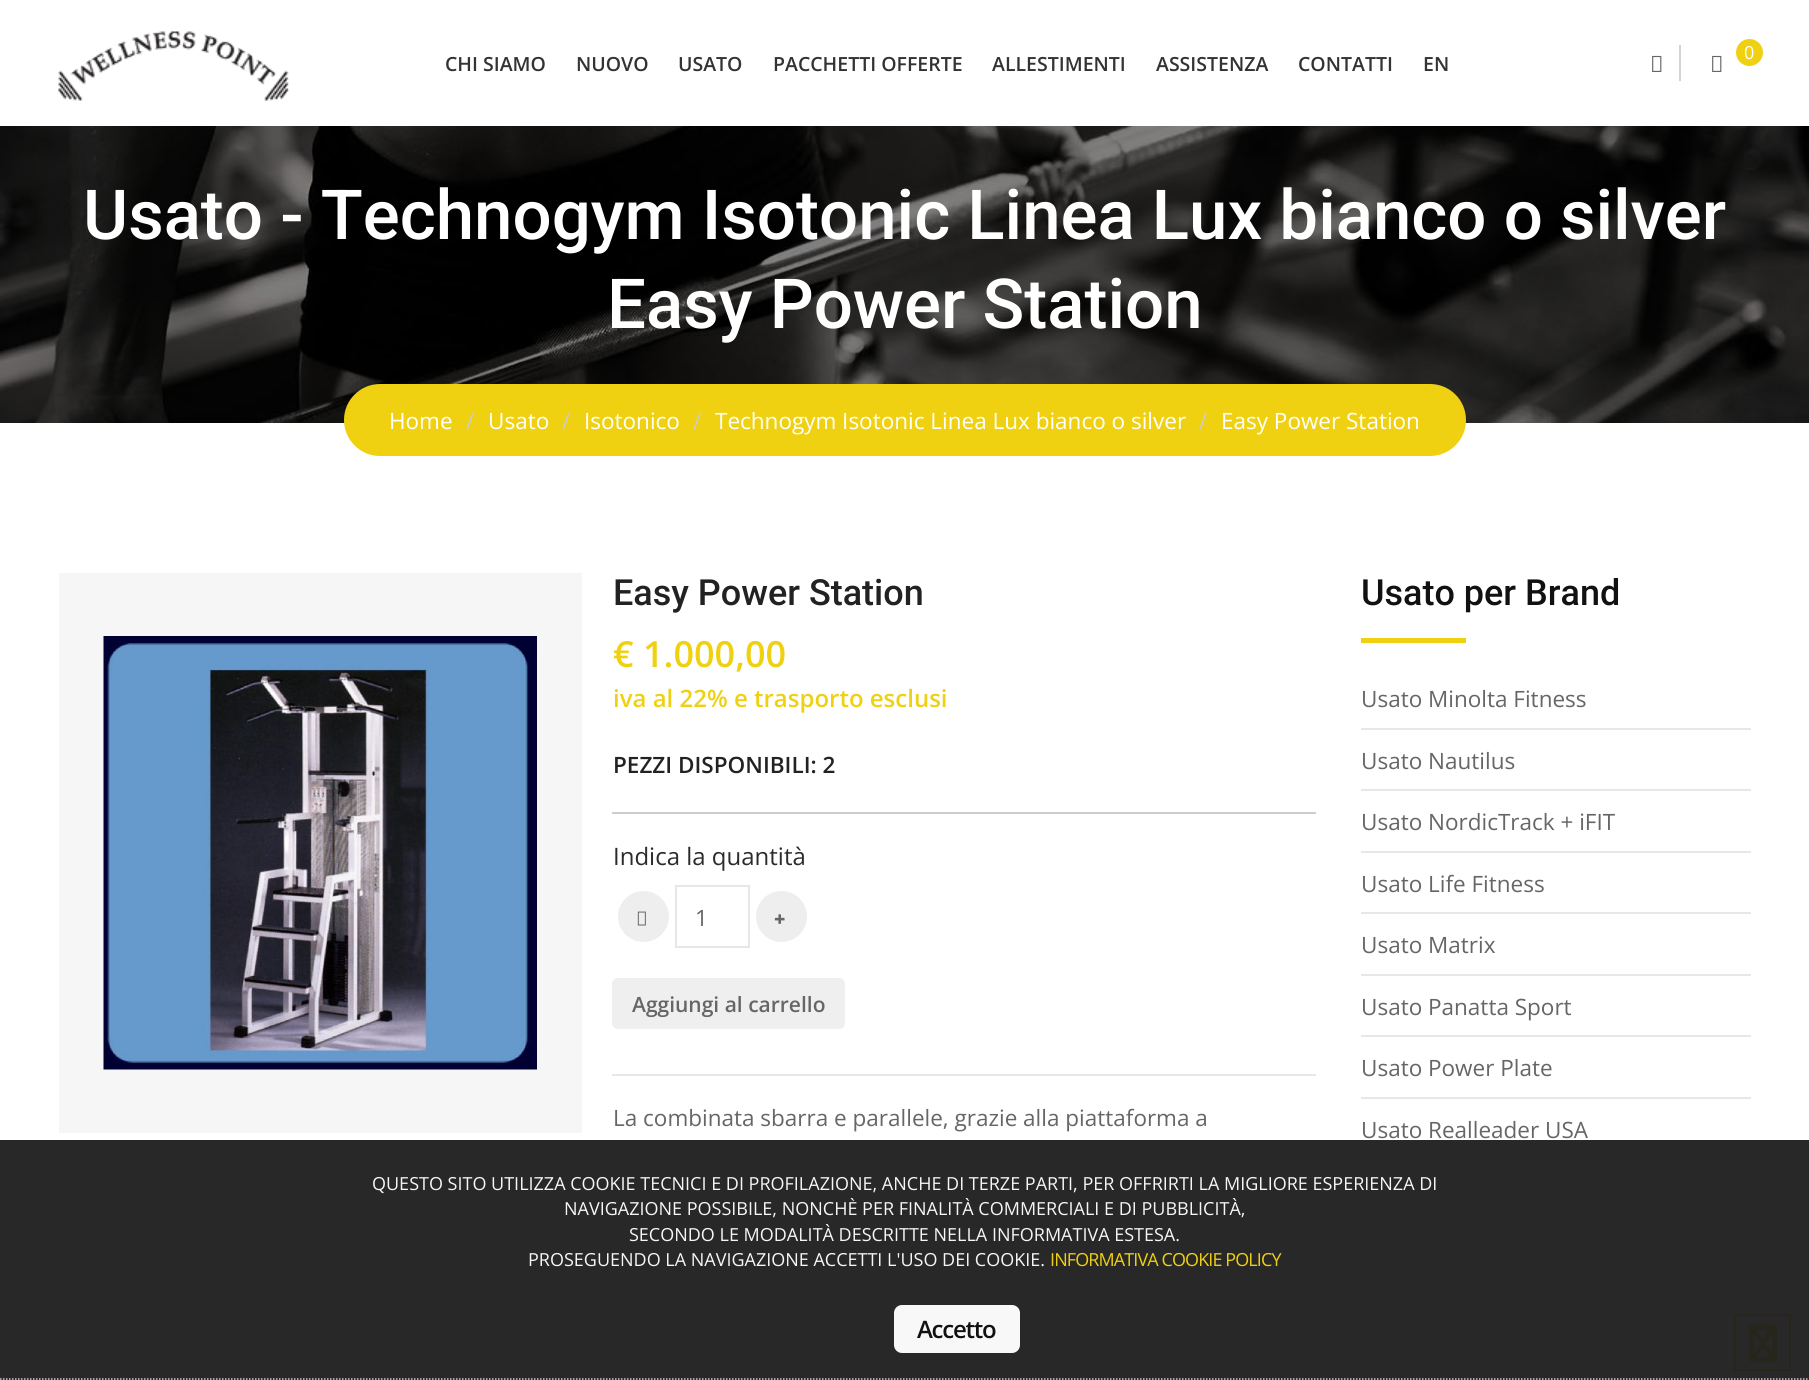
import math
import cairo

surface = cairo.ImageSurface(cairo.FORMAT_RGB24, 1809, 1380)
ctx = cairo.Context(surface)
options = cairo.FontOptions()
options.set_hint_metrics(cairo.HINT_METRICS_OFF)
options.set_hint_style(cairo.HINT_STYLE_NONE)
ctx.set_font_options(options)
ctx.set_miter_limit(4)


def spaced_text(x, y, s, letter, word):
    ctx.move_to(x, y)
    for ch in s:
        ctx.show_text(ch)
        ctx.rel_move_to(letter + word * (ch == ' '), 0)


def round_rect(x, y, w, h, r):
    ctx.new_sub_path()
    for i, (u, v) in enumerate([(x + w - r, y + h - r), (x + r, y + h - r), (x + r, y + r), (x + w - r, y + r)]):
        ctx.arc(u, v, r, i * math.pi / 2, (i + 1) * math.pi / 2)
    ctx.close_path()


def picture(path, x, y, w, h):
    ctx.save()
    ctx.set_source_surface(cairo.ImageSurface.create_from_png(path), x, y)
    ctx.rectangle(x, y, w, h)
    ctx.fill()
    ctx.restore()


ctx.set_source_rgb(1, 1, 1)
ctx.paint()
ctx.set_source_rgb(0.157, 0.157, 0.157)
ctx.rectangle(0, 1140, 1809, 240)
ctx.fill()
picture("img1.png", 58, 31, 231, 70)
ctx.set_source_rgb(0.827, 0.827, 0.827)
ctx.rectangle(1679, 45, 2, 36)
ctx.fill()
picture("img2.png", 1652, 55, 10, 17)
ctx.set_source_rgb(0.937, 0.82, 0.071)
ctx.arc(1749.5, 52.5, 13.5, 0, 2 * math.pi)
ctx.fill()
ctx.select_font_face("Open Sans")
ctx.set_font_size(18)
ctx.set_source_rgb(1, 1, 1)
ctx.move_to(1744, 59)
ctx.show_text("0")
picture("img2.png", 1712, 55, 10, 17)
ctx.select_font_face("Open Sans SemiBold")
ctx.set_font_size(19.5)
ctx.set_source_rgb(0.2, 0.2, 0.2)
ctx.move_to(445, 71)
ctx.show_text("CHI SIAMO")
ctx.move_to(576, 71)
ctx.show_text("NUOVO")
ctx.move_to(678, 71)
ctx.show_text("USATO")
ctx.move_to(773, 71)
ctx.show_text("PACCHETTI OFFERTE")
ctx.move_to(992, 71)
ctx.show_text("ALLESTIMENTI")
ctx.move_to(1156, 71)
ctx.show_text("ASSISTENZA")
ctx.move_to(1298, 71)
ctx.show_text("CONTATTI")
ctx.move_to(1423, 71)
ctx.show_text("EN")
picture("img3.png", 0, 126, 1809, 297)
ctx.select_font_face("Roboto Medium")
ctx.set_font_size(69)
ctx.set_source_rgb(1, 1, 1)
ctx.move_to(83, 239)
ctx.show_text("Usato - Technogym Isotonic Linea Lux bianco o silver")
ctx.move_to(607, 328)
ctx.show_text("Easy Power Station")
ctx.set_source_rgb(0.937, 0.82, 0.071)
round_rect(344, 384, 1122, 72, 36)
ctx.fill()
ctx.select_font_face("Open Sans")
ctx.set_font_size(22.5)
ctx.set_source_rgb(1, 1, 1)
ctx.move_to(389, 429)
ctx.show_text("Home")
ctx.set_source_rgb(0.8, 0.8, 0.8)
ctx.move_to(466, 429)
ctx.show_text("/")
ctx.set_source_rgb(1, 1, 1)
ctx.move_to(488, 429)
ctx.show_text("Usato")
ctx.set_source_rgb(0.8, 0.8, 0.8)
ctx.move_to(562, 429)
ctx.show_text("/")
ctx.set_source_rgb(1, 1, 1)
ctx.move_to(584, 429)
ctx.show_text("Isotonico")
ctx.set_source_rgb(0.8, 0.8, 0.8)
ctx.move_to(693, 429)
ctx.show_text("/")
ctx.set_source_rgb(1, 1, 1)
ctx.move_to(715, 429)
ctx.show_text("Technogym Isotonic Linea Lux bianco o silver")
ctx.set_source_rgb(0.8, 0.8, 0.8)
ctx.move_to(1199, 429)
ctx.show_text("/")
ctx.set_source_rgb(1, 1, 1)
ctx.move_to(1221, 429)
ctx.show_text("Easy Power Station")
ctx.set_source_rgb(0.961, 0.961, 0.961)
ctx.rectangle(59, 573, 523, 560)
ctx.fill()
picture("img4.png", 103, 636, 434, 434)
ctx.select_font_face("Roboto Medium")
ctx.set_font_size(36)
ctx.set_source_rgb(0.133, 0.133, 0.133)
ctx.move_to(613, 605)
ctx.show_text("Easy Power Station")
ctx.select_font_face("Open Sans SemiBold")
ctx.set_source_rgb(0.937, 0.82, 0.071)
ctx.move_to(613, 667)
ctx.show_text("€ 1.000,00")
ctx.set_font_size(24)
ctx.move_to(613, 707)
ctx.show_text("iva al 22% e trasporto esclusi")
ctx.set_font_size(22.5)
ctx.set_source_rgb(0.133, 0.133, 0.133)
ctx.move_to(613, 773)
ctx.show_text("PEZZI DISPONIBILI: 2")
ctx.set_source_rgb(0.8, 0.8, 0.8)
ctx.rectangle(612, 812, 704, 2)
ctx.fill()
ctx.select_font_face("Open Sans")
ctx.set_font_size(24)
ctx.set_source_rgb(0.161, 0.169, 0.173)
ctx.move_to(613, 865)
ctx.show_text("Indica la quantità")
ctx.set_source_rgb(0.933, 0.933, 0.933)
ctx.new_path()
ctx.arc(643.5, 916.5, 25.5, 0, 2 * math.pi)
ctx.fill()
picture("img5.png", 637, 911, 9, 15)
ctx.rectangle(676, 886, 73, 61)
ctx.set_source_rgb(0.906, 0.906, 0.906)
ctx.stroke()
ctx.set_font_size(22.5)
ctx.set_source_rgb(0.4, 0.4, 0.4)
ctx.move_to(695, 926)
ctx.show_text("1")
ctx.set_source_rgb(0.933, 0.933, 0.933)
ctx.new_path()
ctx.arc(781.5, 916.5, 25.5, 0, 2 * math.pi)
ctx.fill()
ctx.select_font_face("Noto Sans Black")
ctx.set_font_size(19.5)
ctx.set_source_rgb(0.4, 0.4, 0.4)
ctx.move_to(774, 926)
ctx.show_text("+")
ctx.set_source_rgb(0.937, 0.937, 0.937)
round_rect(612, 978, 233, 51, 6)
ctx.fill()
ctx.select_font_face("Open Sans SemiBold")
ctx.set_font_size(21)
ctx.set_source_rgb(0.4, 0.4, 0.4)
ctx.move_to(632, 1012)
ctx.show_text("Aggiungi al carrello")
ctx.set_source_rgb(0.906, 0.906, 0.906)
ctx.rectangle(612, 1074, 704, 2)
ctx.fill()
ctx.select_font_face("Open Sans")
ctx.set_font_size(22.5)
ctx.set_source_rgb(0.4, 0.4, 0.4)
ctx.move_to(613, 1126)
ctx.show_text("La combinata sbarra e parallele, grazie alla piattaforma a")
ctx.select_font_face("Roboto Medium")
ctx.set_font_size(36)
ctx.set_source_rgb(0.067, 0.067, 0.067)
ctx.move_to(1361, 605)
ctx.show_text("Usato per Brand")
ctx.set_source_rgb(0.937, 0.82, 0.071)
ctx.rectangle(1361, 638, 105, 5)
ctx.fill()
ctx.set_source_rgb(0.906, 0.906, 0.906)
ctx.rectangle(1361, 728, 390, 2)
ctx.fill()
ctx.select_font_face("Open Sans")
ctx.set_font_size(22.5)
ctx.set_source_rgb(0.4, 0.4, 0.4)
ctx.move_to(1361, 707)
ctx.show_text("Usato Minolta Fitness")
ctx.set_source_rgb(0.906, 0.906, 0.906)
ctx.rectangle(1361, 789, 390, 2)
ctx.fill()
ctx.set_source_rgb(0.4, 0.4, 0.4)
ctx.move_to(1361, 769)
ctx.show_text("Usato Nautilus")
ctx.set_source_rgb(0.906, 0.906, 0.906)
ctx.rectangle(1361, 851, 390, 2)
ctx.fill()
ctx.set_source_rgb(0.4, 0.4, 0.4)
ctx.move_to(1361, 830)
ctx.show_text("Usato NordicTrack + iFIT")
ctx.set_source_rgb(0.906, 0.906, 0.906)
ctx.rectangle(1361, 912, 390, 2)
ctx.fill()
ctx.set_source_rgb(0.4, 0.4, 0.4)
ctx.move_to(1361, 892)
ctx.show_text("Usato Life Fitness")
ctx.set_source_rgb(0.906, 0.906, 0.906)
ctx.rectangle(1361, 974, 390, 2)
ctx.fill()
ctx.set_source_rgb(0.4, 0.4, 0.4)
ctx.move_to(1361, 953)
ctx.show_text("Usato Matrix")
ctx.set_source_rgb(0.906, 0.906, 0.906)
ctx.rectangle(1361, 1035, 390, 2)
ctx.fill()
ctx.set_source_rgb(0.4, 0.4, 0.4)
ctx.move_to(1361, 1015)
ctx.show_text("Usato Panatta Sport")
ctx.set_source_rgb(0.906, 0.906, 0.906)
ctx.rectangle(1361, 1097, 390, 2)
ctx.fill()
ctx.set_source_rgb(0.4, 0.4, 0.4)
ctx.move_to(1361, 1076)
ctx.show_text("Usato Power Plate")
ctx.move_to(1361, 1138)
ctx.show_text("Usato Realleader USA")
ctx.new_path()
ctx.move_to(0, 1379)
ctx.line_to(1809, 1379)
ctx.set_source_rgb(0.8, 0.8, 0.8)
ctx.set_line_width(1.5)
ctx.set_dash([1.5, 1.5])
ctx.stroke()
ctx.set_font_size(18)
ctx.set_source_rgb(0.961, 0.961, 0.961)
ctx.move_to(372, 1190)
ctx.show_text("QUESTO SITO UTILIZZA COOKIE TECNICI E DI PROFILAZIONE, ANCHE DI TERZE PARTI, PER OFFRIRTI LA MIGLIORE ESPERIENZA DI")
ctx.move_to(564, 1215)
ctx.show_text("NAVIGAZIONE POSSIBILE, NONCHÈ PER FINALITÀ COMMERCIALI E DI PUBBLICITÀ,")
ctx.move_to(629, 1241)
ctx.show_text("SECONDO LE MODALITÀ DESCRITTE NELLA INFORMATIVA ESTESA.")
ctx.move_to(528, 1266)
ctx.show_text("PROSEGUENDO LA NAVIGAZIONE ACCETTI L'USO DEI COOKIE.")
ctx.set_source_rgb(0.937, 0.82, 0.071)
spaced_text(1050, 1266, "INFORMATIVA COOKIE POLICY", -0.9, 0)
ctx.set_source_rgb(0.969, 0.969, 0.969)
round_rect(894, 1305, 126, 48, 8)
ctx.fill()
ctx.select_font_face("Open Sans SemiBold")
ctx.set_font_size(24)
ctx.set_source_rgb(0.067, 0.067, 0.067)
spaced_text(917, 1338, "Accetto", -1.25, 0)
ctx.rectangle(1735, 1315, 55, 55)
ctx.set_source_rgb(0.157, 0.149, 0.11)
ctx.set_line_width(2)
ctx.set_dash([])
ctx.stroke()
picture("img6.png", 1749, 1324, 29, 39)
picture("img7.png", 1749, 1324, 29, 39)
surface.write_to_png("page.png")
